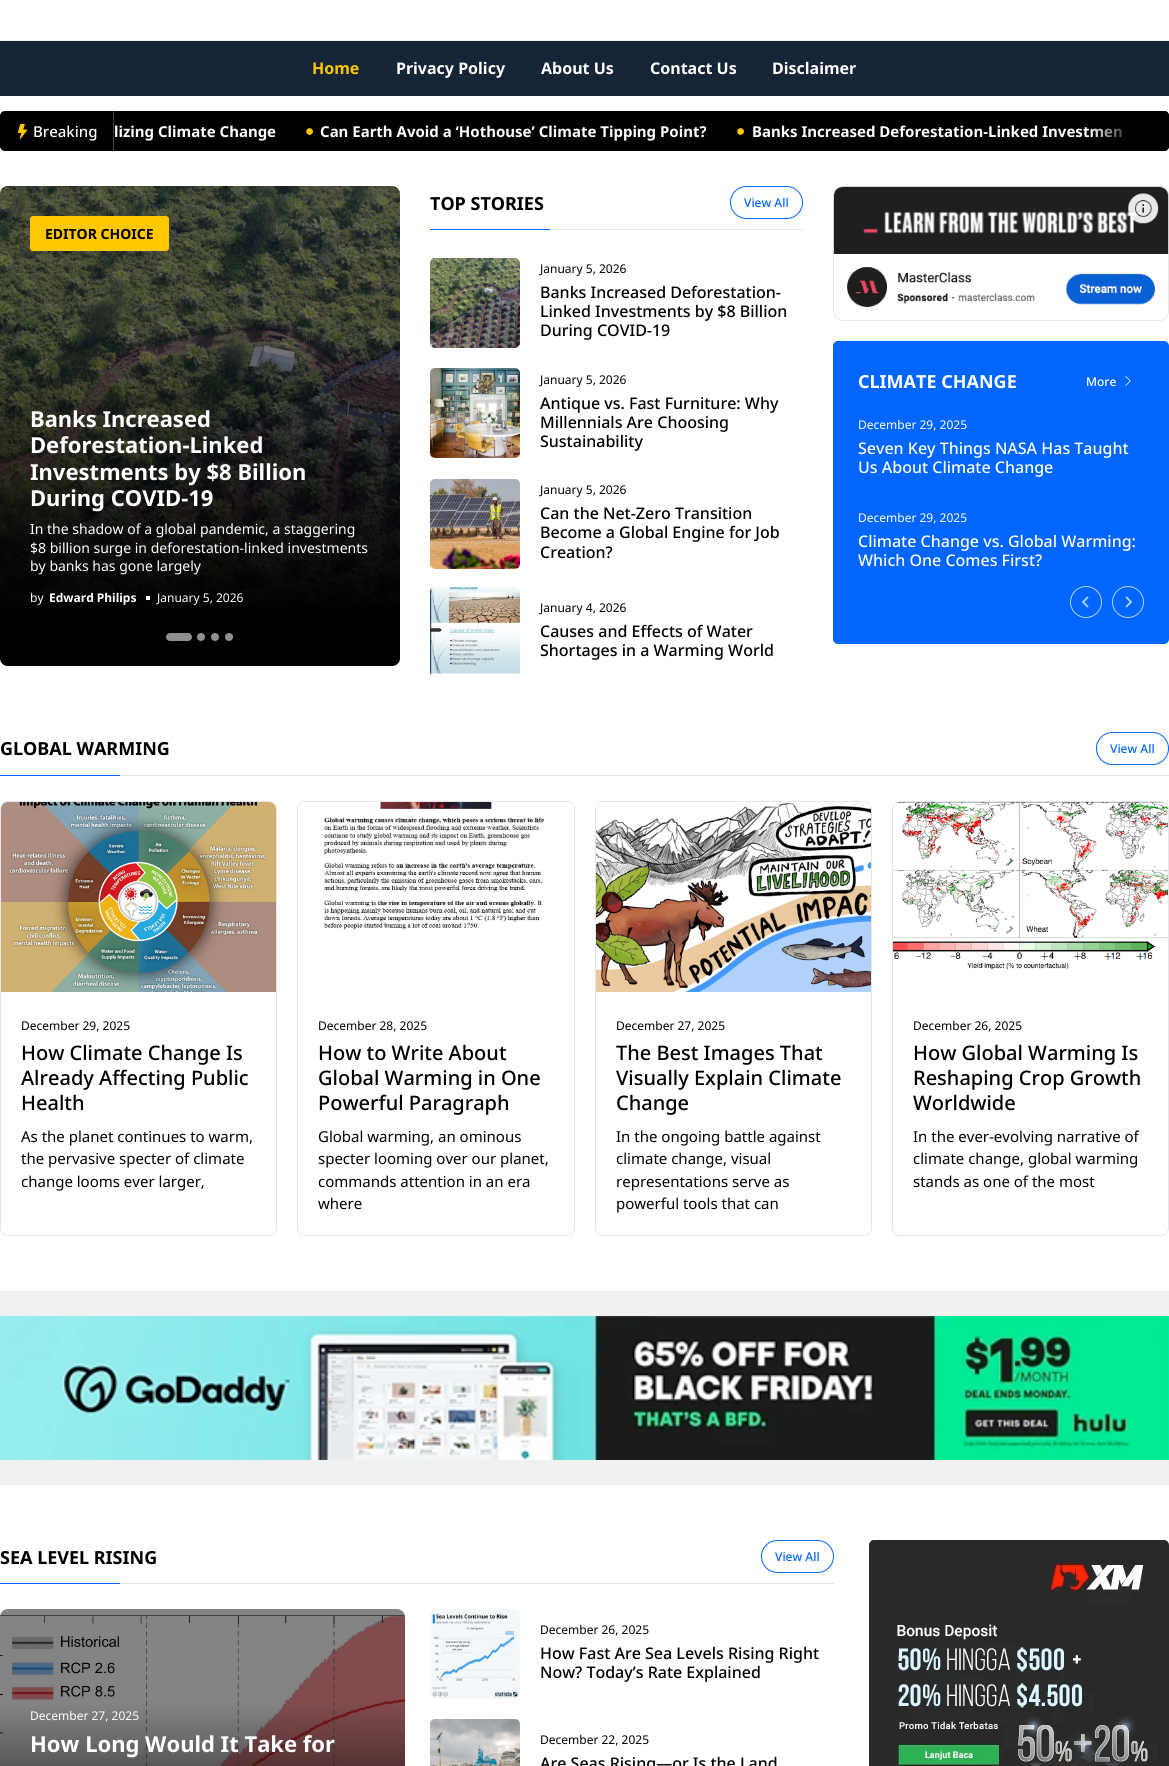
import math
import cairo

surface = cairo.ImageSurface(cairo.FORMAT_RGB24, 1169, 1766)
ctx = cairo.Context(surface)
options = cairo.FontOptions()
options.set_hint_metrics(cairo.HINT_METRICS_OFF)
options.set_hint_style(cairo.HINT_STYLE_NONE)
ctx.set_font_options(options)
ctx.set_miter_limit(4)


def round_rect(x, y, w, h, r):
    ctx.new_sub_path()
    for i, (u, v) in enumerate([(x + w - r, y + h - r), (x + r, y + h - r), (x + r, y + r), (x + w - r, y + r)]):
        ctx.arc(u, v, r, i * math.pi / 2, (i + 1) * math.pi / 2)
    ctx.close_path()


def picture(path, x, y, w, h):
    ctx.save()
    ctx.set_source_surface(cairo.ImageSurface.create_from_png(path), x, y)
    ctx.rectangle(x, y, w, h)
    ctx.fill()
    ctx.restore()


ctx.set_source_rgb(1, 1, 1)
ctx.paint()
ctx.set_source_rgb(0.945, 0.945, 0.945)
ctx.rectangle(0, 40, 1169, 1)
ctx.fill()
ctx.set_source_rgb(0.086, 0.145, 0.212)
ctx.rectangle(0, 41, 1169, 55)
ctx.fill()
ctx.select_font_face("Noto Sans", cairo.FONT_SLANT_NORMAL, cairo.FONT_WEIGHT_BOLD)
ctx.set_font_size(16)
ctx.set_source_rgb(1, 0.78, 0)
ctx.move_to(312, 74)
ctx.show_text("Home")
ctx.set_source_rgb(1, 1, 1)
ctx.move_to(396, 74)
ctx.show_text("Privacy Policy")
ctx.move_to(541, 74)
ctx.show_text("About Us")
ctx.move_to(650, 74)
ctx.show_text("Contact Us")
ctx.move_to(772, 74)
ctx.show_text("Disclaimer")
ctx.set_source_rgb(0, 0, 0)
round_rect(0, 111, 1169, 40, 5)
ctx.fill()
ctx.set_source_rgb(0.278, 0.278, 0.278)
ctx.rectangle(113, 111, 1, 40)
ctx.fill()
picture("img1.png", 17, 124, 11, 15)
ctx.select_font_face("Noto Sans Medium")
ctx.set_font_size(15)
ctx.set_source_rgb(1, 1, 1)
ctx.move_to(33, 137)
ctx.show_text("Breaking")
ctx.select_font_face("Noto Sans", cairo.FONT_SLANT_NORMAL, cairo.FONT_WEIGHT_BOLD)
ctx.move_to(114, 137)
ctx.show_text("lizing Climate Change")
picture("img2.png", 306, 128, 7, 7)
ctx.move_to(320, 137)
ctx.show_text("Can Earth Avoid a ‘Hothouse’ Climate Tipping Point?")
picture("img2.png", 737, 128, 7, 7)
ctx.move_to(752, 137)
ctx.show_text("Banks Increased Deforestation-Linked Investmen")
gradient = cairo.LinearGradient(1169, 131, 1089, 131)
gradient.add_color_stop_rgba(0.42, 0, 0, 0, 1)
gradient.add_color_stop_rgba(1, 0, 0, 0, 0)
ctx.set_source(gradient)
ctx.new_path()
ctx.move_to(1089, 111)
ctx.line_to(1164, 111)
ctx.curve_to(1167, 111, 1169, 113, 1169, 116)
ctx.line_to(1169, 146)
ctx.curve_to(1169, 149, 1167, 151, 1164, 151)
ctx.line_to(1089, 151)
ctx.close_path()
ctx.fill()
picture("img3.png", 0, 186, 400, 480)
gradient = cairo.LinearGradient(200, 666, 200, 186)
gradient.add_color_stop_rgba(0.1, 0, 0, 0, 1)
gradient.add_color_stop_rgba(0.7, 0.039, 0.039, 0.039, 0.5)
ctx.set_source(gradient)
round_rect(0, 186, 400, 480, 8)
ctx.fill()
ctx.set_source_rgb(1, 0.78, 0)
round_rect(30, 216, 139, 35, 3)
ctx.fill()
ctx.set_font_size(14)
ctx.set_source_rgb(0, 0, 0)
ctx.move_to(45, 239)
ctx.show_text("EDITOR CHOICE")
ctx.set_font_size(22)
ctx.set_source_rgb(1, 1, 1)
ctx.move_to(30, 427)
ctx.show_text("Banks Increased")
ctx.move_to(30, 453)
ctx.show_text("Deforestation-Linked")
ctx.move_to(30, 480)
ctx.show_text("Investments by $8 Billion")
ctx.move_to(30, 506)
ctx.show_text("During COVID-19")
ctx.select_font_face("Noto Sans")
ctx.set_font_size(14)
ctx.move_to(30, 534)
ctx.show_text("In the shadow of a global pandemic, a staggering")
ctx.move_to(30, 553)
ctx.show_text("$8 billion surge in deforestation-linked investments")
ctx.move_to(30, 571)
ctx.show_text("by banks has gone largely")
ctx.set_font_size(12)
ctx.move_to(30, 602)
ctx.show_text("by")
ctx.select_font_face("Noto Sans", cairo.FONT_SLANT_NORMAL, cairo.FONT_WEIGHT_BOLD)
ctx.move_to(49, 602)
ctx.show_text("Edward Philips")
ctx.rectangle(146, 596, 4, 4)
ctx.fill()
ctx.select_font_face("Noto Sans")
ctx.move_to(157, 602)
ctx.show_text("January 5, 2026")
ctx.set_source_rgb(0.561, 0.561, 0.561)
round_rect(166, 633, 26, 8, 4)
ctx.fill()
ctx.arc(201, 637, 4, 0, 2 * math.pi)
ctx.fill()
ctx.arc(215, 637, 4, 0, 2 * math.pi)
ctx.fill()
ctx.arc(229, 637, 4, 0, 2 * math.pi)
ctx.fill()
ctx.set_source_rgb(0.898, 0.906, 0.922)
ctx.rectangle(550, 229, 253, 1)
ctx.fill()
ctx.select_font_face("Noto Sans", cairo.FONT_SLANT_NORMAL, cairo.FONT_WEIGHT_BOLD)
ctx.set_font_size(18)
ctx.set_source_rgb(0, 0, 0)
ctx.move_to(430, 210)
ctx.show_text("TOP STORIES")
round_rect(730.5, 186.5, 72, 32, 16)
ctx.set_source_rgb(0.004, 0.4, 1)
ctx.set_line_width(1)
ctx.stroke()
ctx.select_font_face("Noto Sans Medium")
ctx.set_font_size(12)
ctx.move_to(744, 207)
ctx.show_text("View All")
ctx.rectangle(430, 229, 120, 1)
ctx.fill()
picture("img4.png", 430, 258, 90, 90)
ctx.select_font_face("Noto Sans")
ctx.set_source_rgb(0, 0, 0)
ctx.move_to(540, 273)
ctx.show_text("January 5, 2026")
ctx.select_font_face("Noto Sans Medium")
ctx.set_font_size(16)
ctx.move_to(540, 298)
ctx.show_text("Banks Increased Deforestation-")
ctx.move_to(540, 317)
ctx.show_text("Linked Investments by $8 Billion")
ctx.move_to(540, 336)
ctx.show_text("During COVID-19")
picture("img5.png", 430, 368, 90, 90)
ctx.select_font_face("Noto Sans")
ctx.set_font_size(12)
ctx.move_to(540, 384)
ctx.show_text("January 5, 2026")
ctx.select_font_face("Noto Sans Medium")
ctx.set_font_size(16)
ctx.move_to(540, 409)
ctx.show_text("Antique vs. Fast Furniture: Why")
ctx.move_to(540, 428)
ctx.show_text("Millennials Are Choosing")
ctx.move_to(540, 447)
ctx.show_text("Sustainability")
picture("img6.png", 430, 479, 90, 90)
ctx.select_font_face("Noto Sans")
ctx.set_font_size(12)
ctx.move_to(540, 494)
ctx.show_text("January 5, 2026")
ctx.select_font_face("Noto Sans Medium")
ctx.set_font_size(16)
ctx.move_to(540, 519)
ctx.show_text("Can the Net-Zero Transition")
ctx.move_to(540, 538)
ctx.show_text("Become a Global Engine for Job")
ctx.move_to(540, 558)
ctx.show_text("Creation?")
picture("img7.png", 430, 587, 90, 90)
ctx.select_font_face("Noto Sans")
ctx.set_font_size(12)
ctx.move_to(540, 612)
ctx.show_text("January 4, 2026")
ctx.select_font_face("Noto Sans Medium")
ctx.set_font_size(16)
ctx.move_to(540, 637)
ctx.show_text("Causes and Effects of Water")
ctx.move_to(540, 656)
ctx.show_text("Shortages in a Warming World")
picture("img8.png", 833, 186, 336, 135)
ctx.set_source_rgb(0.004, 0.4, 1)
round_rect(833, 341, 336, 303, 5)
ctx.fill()
ctx.select_font_face("Noto Sans", cairo.FONT_SLANT_NORMAL, cairo.FONT_WEIGHT_BOLD)
ctx.set_font_size(18)
ctx.set_source_rgb(1, 1, 1)
ctx.move_to(858, 388)
ctx.show_text("CLIMATE CHANGE")
ctx.select_font_face("Noto Sans Medium")
ctx.set_font_size(12)
ctx.move_to(1086, 386)
ctx.show_text("More")
picture("img9.png", 1125, 376, 6, 10)
ctx.select_font_face("Noto Sans")
ctx.move_to(858, 429)
ctx.show_text("December 29, 2025")
ctx.select_font_face("Noto Sans Medium")
ctx.set_font_size(16)
ctx.move_to(858, 454)
ctx.show_text("Seven Key Things NASA Has Taught")
ctx.move_to(858, 473)
ctx.show_text("Us About Climate Change")
ctx.select_font_face("Noto Sans")
ctx.set_font_size(12)
ctx.move_to(858, 522)
ctx.show_text("December 29, 2025")
ctx.select_font_face("Noto Sans Medium")
ctx.set_font_size(16)
ctx.move_to(858, 547)
ctx.show_text("Climate Change vs. Global Warming:")
ctx.move_to(858, 566)
ctx.show_text("Which One Comes First?")
ctx.new_path()
ctx.arc(1086, 602, 15.5, 0, 2 * math.pi)
ctx.set_source_rgb(0.702, 0.82, 1)
ctx.stroke()
picture("img10.png", 1081, 596, 8, 12)
ctx.arc(1128, 602, 15.5, 0, 2 * math.pi)
ctx.stroke()
picture("img11.png", 1125, 596, 8, 12)
ctx.set_source_rgb(0.898, 0.906, 0.922)
ctx.rectangle(120, 775, 1049, 1)
ctx.fill()
ctx.select_font_face("Noto Sans", cairo.FONT_SLANT_NORMAL, cairo.FONT_WEIGHT_BOLD)
ctx.set_font_size(18)
ctx.set_source_rgb(0, 0, 0)
ctx.move_to(0, 755)
ctx.show_text("GLOBAL WARMING")
round_rect(1096.5, 732.5, 72, 32, 16)
ctx.set_source_rgb(0.004, 0.4, 1)
ctx.stroke()
ctx.select_font_face("Noto Sans Medium")
ctx.set_font_size(12)
ctx.move_to(1110, 753)
ctx.show_text("View All")
ctx.rectangle(0, 775, 120, 1)
ctx.fill()
round_rect(0.5, 801.5, 276, 434, 7.5)
ctx.set_source_rgb(0.898, 0.906, 0.922)
ctx.stroke()
picture("img12.png", 1, 802, 275, 190)
ctx.select_font_face("Noto Sans")
ctx.set_source_rgb(0, 0, 0)
ctx.move_to(21, 1030)
ctx.show_text("December 29, 2025")
ctx.select_font_face("Noto Sans Medium")
ctx.set_font_size(20)
ctx.move_to(21, 1060)
ctx.show_text("How Climate Change Is")
ctx.move_to(21, 1085)
ctx.show_text("Already Affecting Public")
ctx.move_to(21, 1110)
ctx.show_text("Health")
ctx.select_font_face("Noto Sans")
ctx.set_font_size(15)
ctx.move_to(21, 1142)
ctx.show_text("As the planet continues to warm,")
ctx.move_to(21, 1164)
ctx.show_text("the pervasive specter of climate")
ctx.move_to(21, 1187)
ctx.show_text("change looms ever larger,")
round_rect(297.5, 801.5, 277, 434, 7.5)
ctx.set_source_rgb(0.898, 0.906, 0.922)
ctx.stroke()
picture("img13.png", 298, 802, 276, 128)
ctx.set_font_size(12)
ctx.set_source_rgb(0, 0, 0)
ctx.move_to(318, 1030)
ctx.show_text("December 28, 2025")
ctx.select_font_face("Noto Sans Medium")
ctx.set_font_size(20)
ctx.move_to(318, 1060)
ctx.show_text("How to Write About")
ctx.move_to(318, 1085)
ctx.show_text("Global Warming in One")
ctx.move_to(318, 1110)
ctx.show_text("Powerful Paragraph")
ctx.select_font_face("Noto Sans")
ctx.set_font_size(15)
ctx.move_to(318, 1142)
ctx.show_text("Global warming, an ominous")
ctx.move_to(318, 1164)
ctx.show_text("specter looming over our planet,")
ctx.move_to(318, 1187)
ctx.show_text("commands attention in an era")
ctx.move_to(318, 1209)
ctx.show_text("where")
round_rect(595.5, 801.5, 276, 434, 7.5)
ctx.set_source_rgb(0.898, 0.906, 0.922)
ctx.stroke()
picture("img14.png", 596, 802, 275, 190)
ctx.set_font_size(12)
ctx.set_source_rgb(0, 0, 0)
ctx.move_to(616, 1030)
ctx.show_text("December 27, 2025")
ctx.select_font_face("Noto Sans Medium")
ctx.set_font_size(20)
ctx.move_to(616, 1060)
ctx.show_text("The Best Images That")
ctx.move_to(616, 1085)
ctx.show_text("Visually Explain Climate")
ctx.move_to(616, 1110)
ctx.show_text("Change")
ctx.select_font_face("Noto Sans")
ctx.set_font_size(15)
ctx.move_to(616, 1142)
ctx.show_text("In the ongoing battle against")
ctx.move_to(616, 1164)
ctx.show_text("climate change, visual")
ctx.move_to(616, 1187)
ctx.show_text("representations serve as")
ctx.move_to(616, 1209)
ctx.show_text("powerful tools that can")
round_rect(892.5, 801.5, 276, 434, 7.5)
ctx.set_source_rgb(0.898, 0.906, 0.922)
ctx.stroke()
picture("img15.png", 893, 802, 275, 168)
ctx.set_font_size(12)
ctx.set_source_rgb(0, 0, 0)
ctx.move_to(913, 1030)
ctx.show_text("December 26, 2025")
ctx.select_font_face("Noto Sans Medium")
ctx.set_font_size(20)
ctx.move_to(913, 1060)
ctx.show_text("How Global Warming Is")
ctx.move_to(913, 1085)
ctx.show_text("Reshaping Crop Growth")
ctx.move_to(913, 1110)
ctx.show_text("Worldwide")
ctx.select_font_face("Noto Sans")
ctx.set_font_size(15)
ctx.move_to(913, 1142)
ctx.show_text("In the ever-evolving narrative of")
ctx.move_to(913, 1164)
ctx.show_text("climate change, global warming")
ctx.move_to(913, 1187)
ctx.show_text("stands as one of the most")
ctx.set_source_rgb(0.945, 0.945, 0.945)
ctx.rectangle(0, 1291, 1169, 194)
ctx.fill()
picture("img16.png", 0, 1316, 1169, 144)
ctx.set_source_rgb(0.898, 0.906, 0.922)
ctx.rectangle(120, 1583, 714, 1)
ctx.fill()
ctx.select_font_face("Noto Sans", cairo.FONT_SLANT_NORMAL, cairo.FONT_WEIGHT_BOLD)
ctx.set_font_size(18)
ctx.set_source_rgb(0, 0, 0)
ctx.move_to(0, 1564)
ctx.show_text("SEA LEVEL RISING")
round_rect(761.5, 1540.5, 72, 32, 16)
ctx.set_source_rgb(0.004, 0.4, 1)
ctx.stroke()
ctx.select_font_face("Noto Sans Medium")
ctx.set_font_size(12)
ctx.move_to(775, 1561)
ctx.show_text("View All")
ctx.rectangle(0, 1583, 120, 1)
ctx.fill()
picture("img17.png", 0, 1610, 405, 156)
gradient = cairo.LinearGradient(203, 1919, 203, 1609)
gradient.add_color_stop_rgba(0.1, 0, 0, 0, 1)
gradient.add_color_stop_rgba(0.7, 0.039, 0.039, 0.039, 0.5)
ctx.set_source(gradient)
round_rect(0, 1609, 405, 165, 8)
ctx.fill()
ctx.select_font_face("Noto Sans")
ctx.set_source_rgb(1, 1, 1)
ctx.move_to(30, 1720)
ctx.show_text("December 27, 2025")
ctx.select_font_face("Noto Sans", cairo.FONT_SLANT_NORMAL, cairo.FONT_WEIGHT_BOLD)
ctx.set_font_size(22)
ctx.move_to(30, 1752)
ctx.show_text("How Long Would It Take for")
picture("img18.png", 430, 1609, 90, 90)
ctx.select_font_face("Noto Sans")
ctx.set_font_size(12)
ctx.set_source_rgb(0, 0, 0)
ctx.move_to(540, 1634)
ctx.show_text("December 26, 2025")
ctx.select_font_face("Noto Sans Medium")
ctx.set_font_size(16)
ctx.move_to(540, 1659)
ctx.show_text("How Fast Are Sea Levels Rising Right")
ctx.move_to(540, 1678)
ctx.show_text("Now? Today’s Rate Explained")
picture("img19.png", 430, 1719, 90, 47)
ctx.select_font_face("Noto Sans")
ctx.set_font_size(12)
ctx.move_to(540, 1744)
ctx.show_text("December 22, 2025")
ctx.select_font_face("Noto Sans Medium")
ctx.set_font_size(16)
ctx.move_to(540, 1769)
ctx.show_text("Are Seas Rising—or Is the Land")
picture("img20.png", 869, 1540, 300, 226)
surface.write_to_png("page.png")
